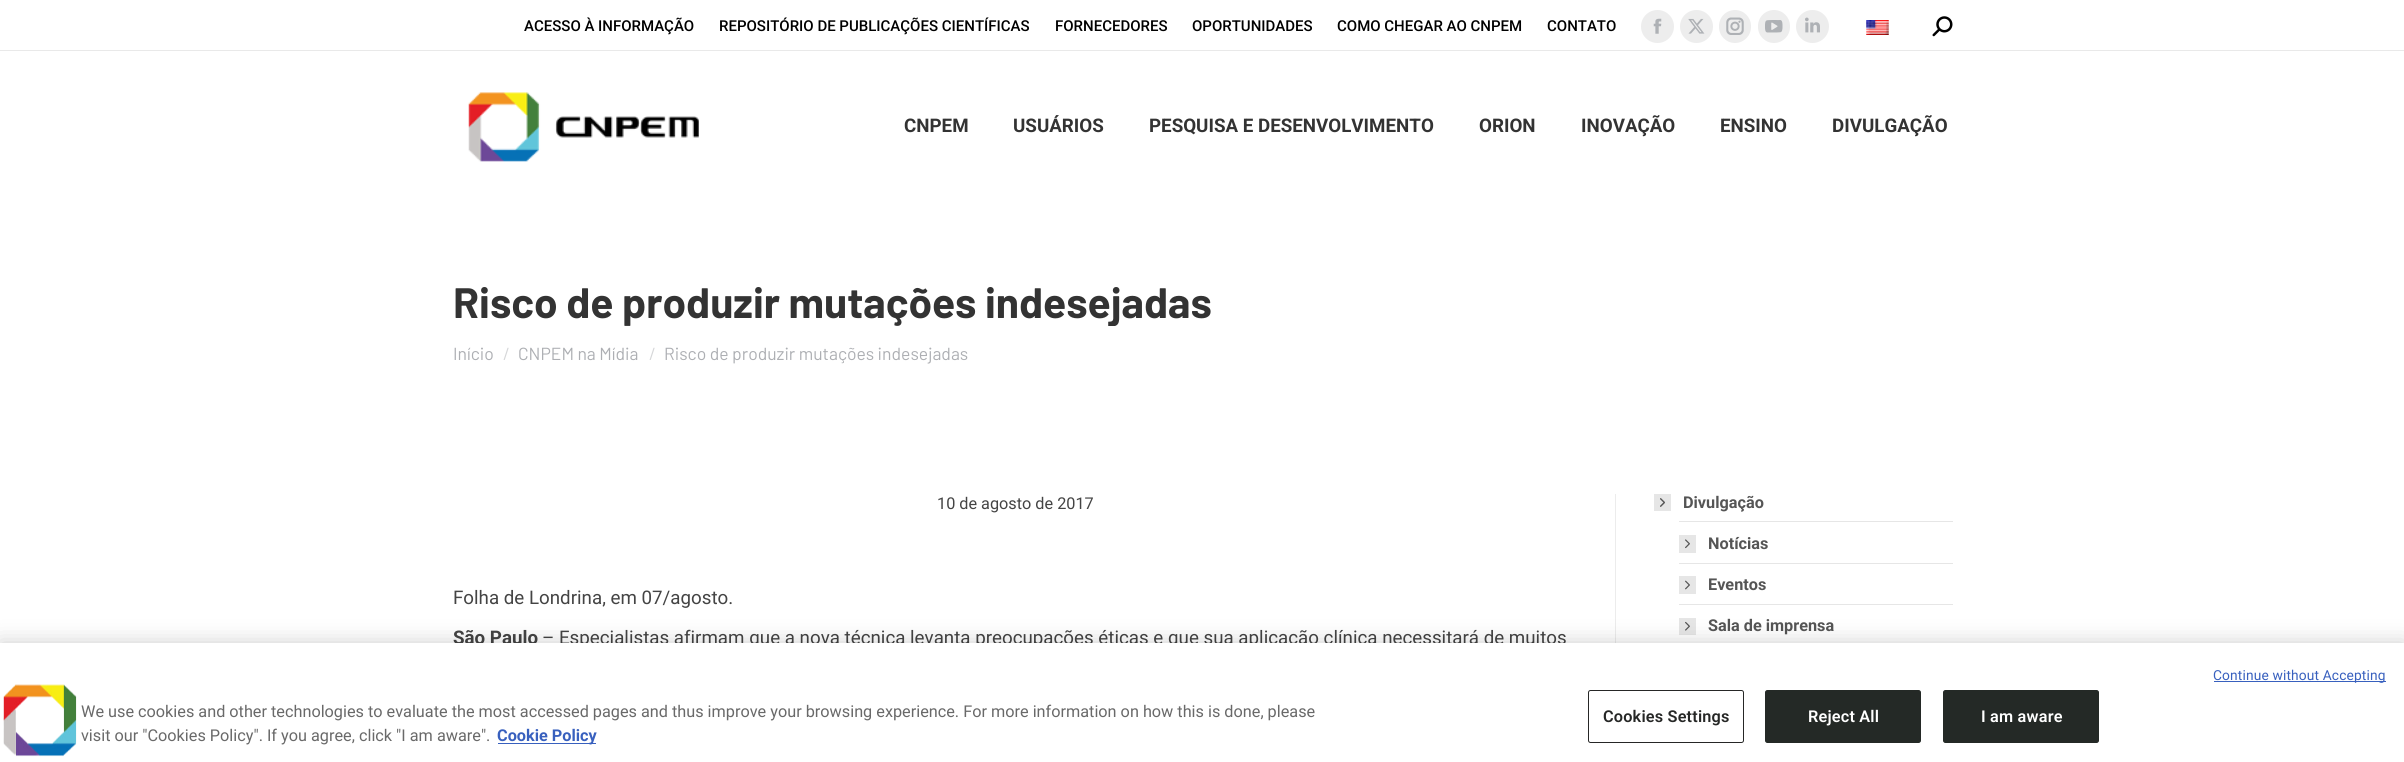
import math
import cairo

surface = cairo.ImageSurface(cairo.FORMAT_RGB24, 2404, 762)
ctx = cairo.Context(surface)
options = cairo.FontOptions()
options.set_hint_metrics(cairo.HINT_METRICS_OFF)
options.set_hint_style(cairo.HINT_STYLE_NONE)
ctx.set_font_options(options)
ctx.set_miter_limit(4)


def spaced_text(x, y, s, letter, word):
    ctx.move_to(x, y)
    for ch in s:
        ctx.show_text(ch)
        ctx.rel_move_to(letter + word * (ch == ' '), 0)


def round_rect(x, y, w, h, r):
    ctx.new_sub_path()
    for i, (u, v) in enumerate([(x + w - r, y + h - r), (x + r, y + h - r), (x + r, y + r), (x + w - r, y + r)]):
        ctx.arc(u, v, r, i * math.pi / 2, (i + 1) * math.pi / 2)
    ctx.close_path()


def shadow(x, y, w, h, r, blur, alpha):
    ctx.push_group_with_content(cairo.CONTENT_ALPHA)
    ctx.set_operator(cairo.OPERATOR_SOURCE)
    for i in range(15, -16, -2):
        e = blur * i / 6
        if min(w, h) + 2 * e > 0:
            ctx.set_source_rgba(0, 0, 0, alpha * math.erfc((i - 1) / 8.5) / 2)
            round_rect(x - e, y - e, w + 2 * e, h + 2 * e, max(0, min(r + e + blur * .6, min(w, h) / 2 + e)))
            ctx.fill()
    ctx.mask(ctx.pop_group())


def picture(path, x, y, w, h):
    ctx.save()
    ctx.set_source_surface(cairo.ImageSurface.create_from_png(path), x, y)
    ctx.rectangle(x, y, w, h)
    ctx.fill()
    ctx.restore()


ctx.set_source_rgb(1, 1, 1)
ctx.paint()
ctx.select_font_face("Roboto Medium")
ctx.set_font_size(15)
ctx.set_source_rgb(0, 0, 0)
ctx.move_to(524, 31)
ctx.show_text("ACESSO À INFORMAÇÃO")
ctx.move_to(719, 31)
ctx.show_text("REPOSITÓRIO DE PUBLICAÇÕES CIENTÍFICAS")
ctx.move_to(1055, 31)
ctx.show_text("FORNECEDORES")
ctx.move_to(1192, 31)
ctx.show_text("OPORTUNIDADES")
ctx.move_to(1337, 31)
ctx.show_text("COMO CHEGAR AO CNPEM")
ctx.move_to(1547, 31)
ctx.show_text("CONTATO")
ctx.set_source_rgb(0.929, 0.929, 0.929)
ctx.new_path()
ctx.arc(1657.5, 26.5, 16.5, 0, 2 * math.pi)
ctx.fill()
picture("img1.png", 1653, 18, 9, 16)
ctx.arc(1696.5, 26.5, 16.5, 0, 2 * math.pi)
ctx.fill()
picture("img2.png", 1688, 18, 17, 16)
round_rect(1719, 10, 32, 33, 16)
ctx.fill()
picture("img3.png", 1726, 17, 18, 18)
round_rect(1758, 10, 32, 33, 16)
ctx.fill()
picture("img4.png", 1765, 20, 18, 13)
ctx.arc(1812.5, 26.5, 16.5, 0, 2 * math.pi)
ctx.fill()
picture("img5.png", 1805, 17, 15, 16)
picture("img6.png", 1866, 20, 23, 15)
picture("img7.png", 1932, 16, 21, 21)
ctx.set_source_rgb(0.914, 0.914, 0.914)
ctx.rectangle(0, 50, 2404, 1)
ctx.fill()
picture("img8.png", 468, 92, 231, 70)
ctx.select_font_face("Roboto", cairo.FONT_SLANT_NORMAL, cairo.FONT_WEIGHT_BOLD)
ctx.set_font_size(18.75)
ctx.set_source_rgb(0.2, 0.2, 0.2)
ctx.move_to(904, 132)
ctx.show_text("CNPEM")
ctx.move_to(1013, 132)
ctx.show_text("USUÁRIOS")
ctx.move_to(1149, 132)
ctx.show_text("PESQUISA E DESENVOLVIMENTO")
ctx.move_to(1479, 132)
ctx.show_text("ORION")
ctx.move_to(1581, 132)
ctx.show_text("INOVAÇÃO")
ctx.move_to(1720, 132)
ctx.show_text("ENSINO")
ctx.move_to(1832, 132)
ctx.show_text("DIVULGAÇÃO")
ctx.save()
ctx.rectangle(453, 276, 758, 50)
ctx.clip()
ctx.select_font_face("Barlow", cairo.FONT_SLANT_NORMAL, cairo.FONT_WEIGHT_BOLD)
ctx.set_font_size(42.5)
ctx.move_to(453, 318)
ctx.show_text("Risco de produzir mutações indesejadas")
ctx.restore()
ctx.select_font_face("Barlow")
ctx.set_font_size(17.5)
ctx.set_source_rgb(0.678, 0.686, 0.702)
ctx.move_to(453, 360)
ctx.show_text("Início")
ctx.set_source_rgb(0.839, 0.843, 0.851)
ctx.move_to(503, 360)
ctx.show_text("/")
ctx.set_source_rgb(0.678, 0.686, 0.702)
ctx.move_to(518, 360)
ctx.show_text("CNPEM na Mídia")
ctx.set_source_rgb(0.839, 0.843, 0.851)
ctx.move_to(649, 360)
ctx.show_text("/")
ctx.set_source_rgb(0.678, 0.686, 0.702)
ctx.move_to(664, 360)
ctx.show_text("Risco de produzir mutações indesejadas")
ctx.select_font_face("Roboto")
ctx.set_font_size(16.25)
ctx.set_source_rgb(0.267, 0.267, 0.267)
ctx.move_to(937, 509)
ctx.show_text("10 de agosto de 2017")
ctx.set_font_size(18.75)
ctx.move_to(453, 604)
ctx.show_text("Folha de Londrina, em 07/agosto.")
ctx.select_font_face("Roboto", cairo.FONT_SLANT_NORMAL, cairo.FONT_WEIGHT_BOLD)
ctx.move_to(453, 644)
ctx.show_text("São Paulo")
ctx.select_font_face("Roboto")
ctx.move_to(542, 644)
ctx.show_text("– Especialistas afirmam que a nova técnica levanta preocupações éticas e que sua aplicação clínica necessitará de muitos")
ctx.set_source_rgb(0.922, 0.922, 0.922)
ctx.rectangle(1615, 494, 1, 149)
ctx.fill()
ctx.set_source_rgb(0.902, 0.902, 0.902)
ctx.rectangle(1654, 494, 17, 17)
ctx.fill()
ctx.select_font_face("Roboto", cairo.FONT_SLANT_NORMAL, cairo.FONT_WEIGHT_BOLD)
ctx.set_font_size(16.25)
ctx.set_source_rgb(0.333, 0.333, 0.333)
ctx.move_to(1683, 508)
ctx.show_text("Divulgação")
picture("img9.png", 1660, 498, 5, 9)
picture("img10.png", 1660, 498, 5, 9)
ctx.set_source_rgb(0.902, 0.902, 0.902)
ctx.rectangle(1679, 521, 274, 1)
ctx.fill()
ctx.rectangle(1679, 535, 17, 18)
ctx.fill()
ctx.set_source_rgb(0.333, 0.333, 0.333)
ctx.move_to(1708, 549)
ctx.show_text("Notícias")
picture("img11.png", 1685, 539, 5, 10)
ctx.set_source_rgb(0.902, 0.902, 0.902)
ctx.rectangle(1679, 563, 274, 1)
ctx.fill()
ctx.rectangle(1679, 576, 17, 18)
ctx.fill()
ctx.set_source_rgb(0.333, 0.333, 0.333)
ctx.move_to(1708, 590)
ctx.show_text("Eventos")
picture("img12.png", 1685, 580, 5, 10)
ctx.set_source_rgb(0.902, 0.902, 0.902)
ctx.rectangle(1679, 604, 274, 1)
ctx.fill()
ctx.rectangle(1679, 618, 17, 17)
ctx.fill()
ctx.set_source_rgb(0.333, 0.333, 0.333)
ctx.move_to(1708, 631)
ctx.show_text("Sala de imprensa")
picture("img13.png", 1685, 621, 5, 10)
ctx.set_source_rgb(0, 0, 0)
shadow(0, 643, 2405, 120, 0, 11, 0.2)
ctx.set_source_rgb(1, 1, 1)
ctx.rectangle(0, 643, 2404, 119)
ctx.fill()
ctx.set_source_rgb(0.22, 0.376, 0.745)
ctx.rectangle(2214, 681, 172, 1)
ctx.fill()
ctx.select_font_face("Roboto")
ctx.set_font_size(13.75)
spaced_text(2213, 680, "Continue without Accepting", 0.15, 0)
picture("img14.png", 3, 684, 74, 73)
ctx.set_font_size(16.25)
ctx.set_source_rgb(0.412, 0.412, 0.412)
ctx.move_to(81, 717)
ctx.show_text("We use cookies and other technologies to evaluate the most accessed pages and thus improve your browsing experience. For more information on how this is done, please")
ctx.move_to(81, 741)
ctx.show_text("visit our \"Cookies Policy\". If you agree, click \"I am aware\".")
ctx.set_source_rgb(0.22, 0.376, 0.745)
ctx.rectangle(498, 743, 98, 1)
ctx.fill()
ctx.select_font_face("Roboto", cairo.FONT_SLANT_NORMAL, cairo.FONT_WEIGHT_BOLD)
ctx.move_to(497, 741)
ctx.show_text("Cookie Policy")
round_rect(1588.5, 690.5, 155, 52, 2)
ctx.set_source_rgb(0.149, 0.153, 0.149)
ctx.set_line_width(1)
ctx.stroke()
ctx.select_font_face("Roboto SemiBold")
spaced_text(1603, 722, "Cookies Settings", 0.2, 0)
ctx.set_source_rgb(0.141, 0.161, 0.149)
round_rect(1765.5, 690.5, 155, 52, 2)
ctx.fill_preserve()
ctx.stroke()
ctx.set_source_rgb(1, 1, 1)
spaced_text(1808, 722, "Reject All", 0.2, 0)
ctx.set_source_rgb(0.141, 0.161, 0.149)
round_rect(1943.5, 690.5, 155, 52, 2)
ctx.fill_preserve()
ctx.stroke()
ctx.set_source_rgb(1, 1, 1)
spaced_text(1981, 722, "I am aware", 0.2, 0)
surface.write_to_png("page.png")
